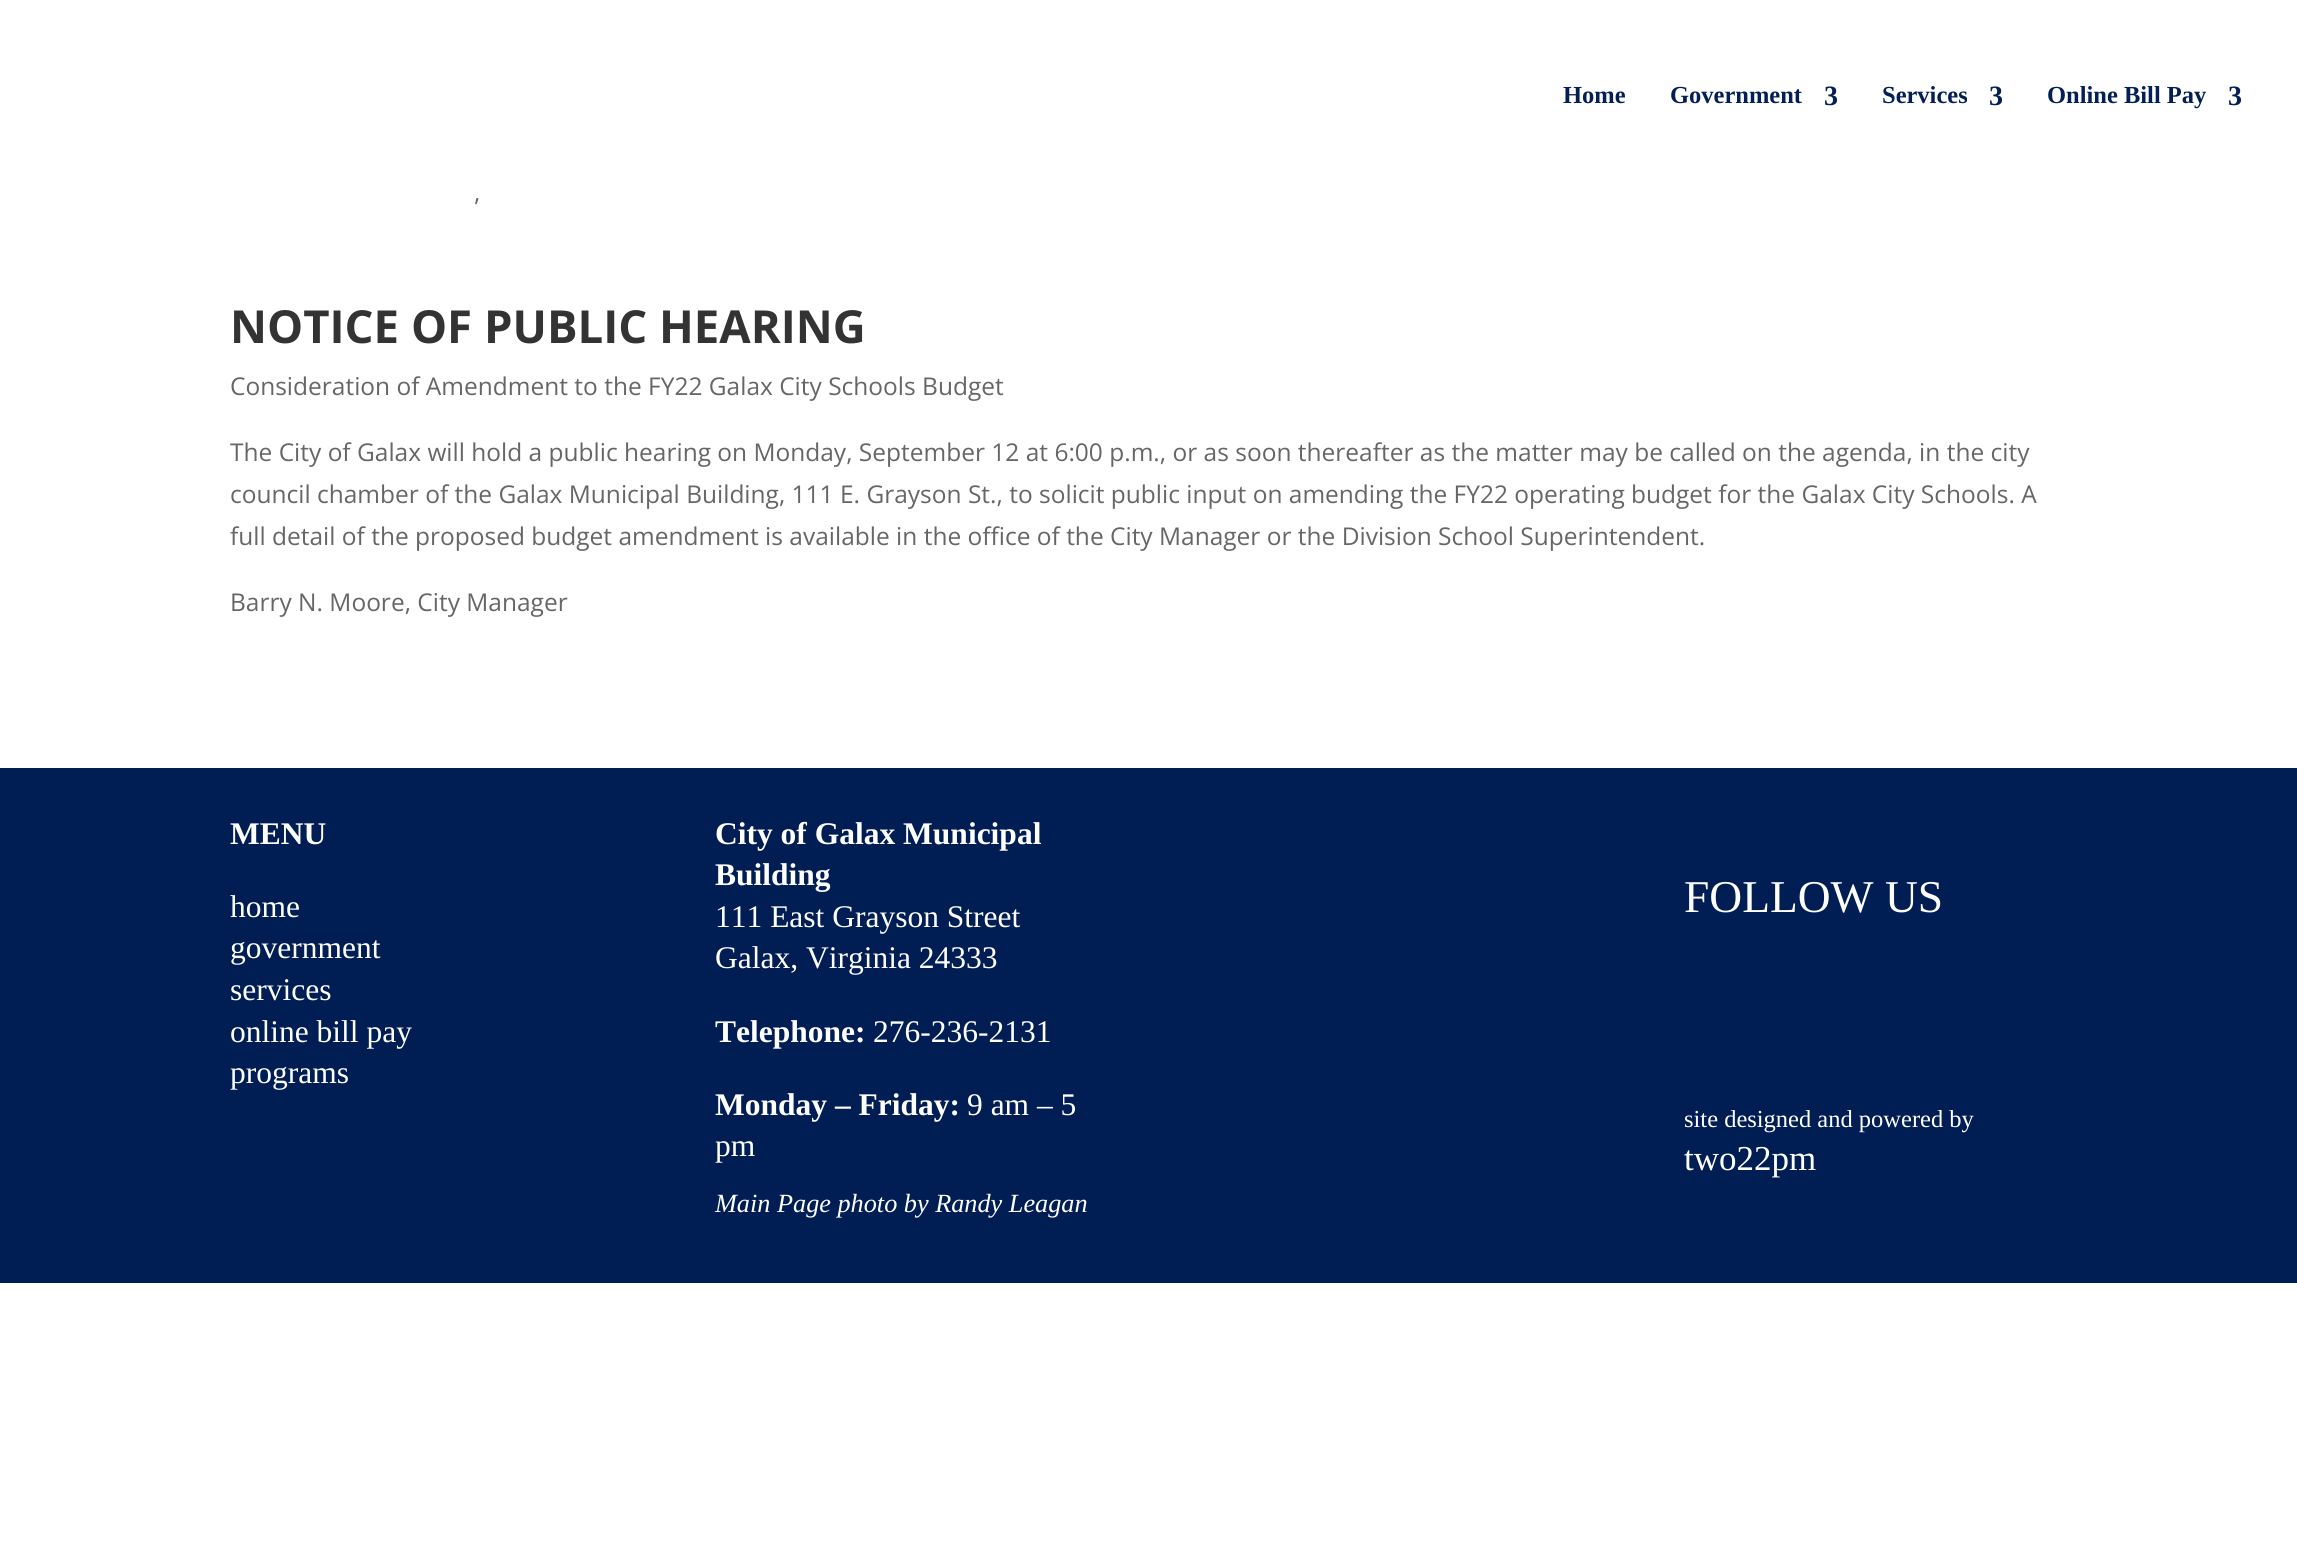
import math
import cairo

surface = cairo.ImageSurface(cairo.FORMAT_RGB24, 2297, 1555)
ctx = cairo.Context(surface)
options = cairo.FontOptions()
options.set_hint_metrics(cairo.HINT_METRICS_OFF)
options.set_hint_style(cairo.HINT_STYLE_NONE)
ctx.set_font_options(options)
ctx.set_miter_limit(4)


ctx.set_source_rgb(1, 1, 1)
ctx.paint()
ctx.select_font_face("Liberation Serif", cairo.FONT_SLANT_NORMAL, cairo.FONT_WEIGHT_BOLD)
ctx.set_font_size(24.5)
ctx.set_source_rgb(0.016, 0.122, 0.333)
ctx.move_to(1563, 103)
ctx.show_text("Home")
ctx.move_to(1670, 103)
ctx.show_text("Government")
ctx.set_font_size(28)
ctx.move_to(1824, 105)
ctx.show_text("3")
ctx.set_font_size(24.5)
ctx.move_to(1882, 103)
ctx.show_text("Services")
ctx.set_font_size(28)
ctx.move_to(1989, 105)
ctx.show_text("3")
ctx.set_font_size(24.5)
ctx.move_to(2047, 103)
ctx.show_text("Online Bill Pay")
ctx.set_font_size(28)
ctx.move_to(2228, 105)
ctx.show_text("3")
ctx.select_font_face("Open Sans")
ctx.set_font_size(24.5)
ctx.set_source_rgb(0.4, 0.4, 0.4)
ctx.move_to(474, 201)
ctx.show_text(",")
ctx.select_font_face("Open Sans", cairo.FONT_SLANT_NORMAL, cairo.FONT_WEIGHT_BOLD)
ctx.set_font_size(45.5)
ctx.set_source_rgb(0.2, 0.2, 0.2)
ctx.move_to(230, 343)
ctx.show_text("NOTICE OF PUBLIC HEARING")
ctx.select_font_face("Open Sans")
ctx.set_font_size(24.5)
ctx.set_source_rgb(0.4, 0.4, 0.4)
ctx.move_to(230, 395)
ctx.show_text("Consideration of Amendment to the FY22 Galax City Schools Budget")
ctx.move_to(230, 461)
ctx.show_text("The City of Galax will hold a public hearing on Monday, September 12 at 6:00 p.m., or as soon thereafter as the matter may be called on the agenda, in the city")
ctx.move_to(230, 503)
ctx.show_text("council chamber of the Galax Municipal Building, 111 E. Grayson St., to solicit public input on amending the FY22 operating budget for the Galax City Schools. A")
ctx.move_to(230, 545)
ctx.show_text("full detail of the proposed budget amendment is available in the office of the City Manager or the Division School Superintendent.")
ctx.move_to(230, 611)
ctx.show_text("Barry N. Moore, City Manager")
ctx.set_source_rgb(0, 0.118, 0.325)
ctx.rectangle(0, 768, 2297, 515)
ctx.fill()
ctx.select_font_face("Liberation Serif", cairo.FONT_SLANT_NORMAL, cairo.FONT_WEIGHT_BOLD)
ctx.set_font_size(31.5)
ctx.set_source_rgb(1, 1, 1)
ctx.move_to(230, 844)
ctx.show_text("MENU")
ctx.select_font_face("Liberation Serif")
ctx.move_to(230, 917)
ctx.show_text("home")
ctx.move_to(230, 958)
ctx.show_text("government")
ctx.move_to(230, 1000)
ctx.show_text("services")
ctx.move_to(230, 1042)
ctx.show_text("online bill pay")
ctx.move_to(230, 1083)
ctx.show_text("programs")
ctx.select_font_face("Liberation Serif", cairo.FONT_SLANT_NORMAL, cairo.FONT_WEIGHT_BOLD)
ctx.move_to(715, 844)
ctx.show_text("City of Galax Municipal")
ctx.move_to(715, 885)
ctx.show_text("Building")
ctx.select_font_face("Liberation Serif")
ctx.move_to(715, 927)
ctx.show_text("111 East Grayson Street")
ctx.move_to(715, 968)
ctx.show_text("Galax, Virginia 24333")
ctx.select_font_face("Liberation Serif", cairo.FONT_SLANT_NORMAL, cairo.FONT_WEIGHT_BOLD)
ctx.move_to(715, 1042)
ctx.show_text("Telephone:")
ctx.select_font_face("Liberation Serif")
ctx.move_to(873, 1042)
ctx.show_text("276-236-2131")
ctx.select_font_face("Liberation Serif", cairo.FONT_SLANT_NORMAL, cairo.FONT_WEIGHT_BOLD)
ctx.move_to(715, 1115)
ctx.show_text("Monday – Friday:")
ctx.select_font_face("Liberation Serif")
ctx.move_to(967, 1115)
ctx.show_text("9 am – 5")
ctx.move_to(715, 1156)
ctx.show_text("pm")
ctx.select_font_face("Liberation Serif", cairo.FONT_SLANT_ITALIC)
ctx.set_font_size(26.25)
ctx.move_to(715, 1212)
ctx.show_text("Main Page photo by Randy Leagan")
ctx.select_font_face("Liberation Serif")
ctx.set_font_size(45.5)
ctx.move_to(1684, 912)
ctx.show_text("FOLLOW US")
ctx.set_font_size(24.5)
ctx.move_to(1684, 1127)
ctx.show_text("site designed and powered by")
ctx.set_font_size(35)
ctx.move_to(1684, 1170)
ctx.show_text("two22pm")
surface.write_to_png("page.png")
